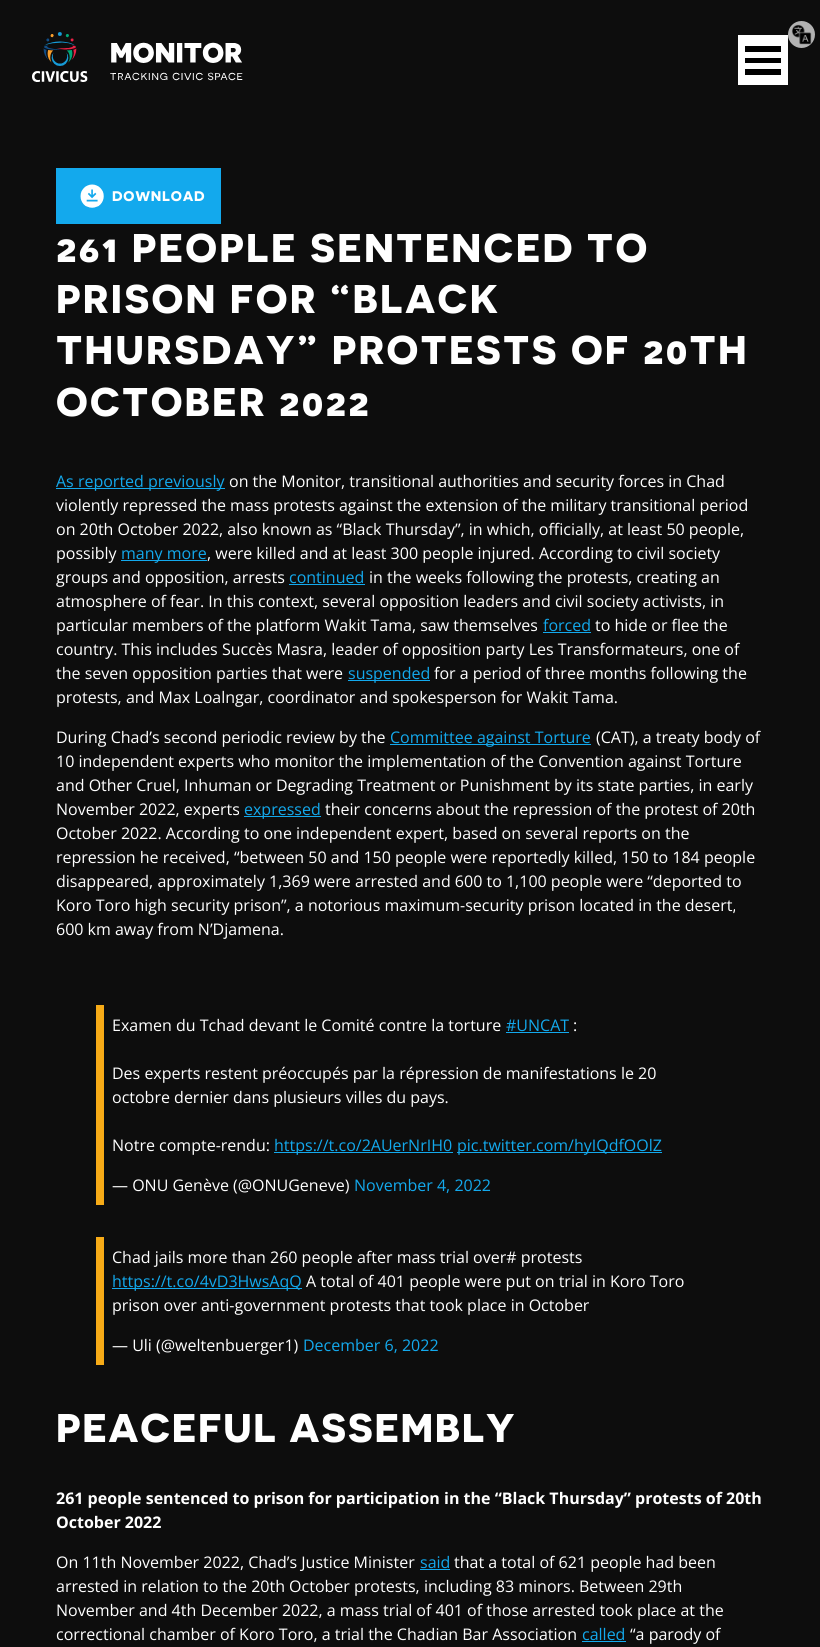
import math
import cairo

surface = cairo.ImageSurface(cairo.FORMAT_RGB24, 820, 1647)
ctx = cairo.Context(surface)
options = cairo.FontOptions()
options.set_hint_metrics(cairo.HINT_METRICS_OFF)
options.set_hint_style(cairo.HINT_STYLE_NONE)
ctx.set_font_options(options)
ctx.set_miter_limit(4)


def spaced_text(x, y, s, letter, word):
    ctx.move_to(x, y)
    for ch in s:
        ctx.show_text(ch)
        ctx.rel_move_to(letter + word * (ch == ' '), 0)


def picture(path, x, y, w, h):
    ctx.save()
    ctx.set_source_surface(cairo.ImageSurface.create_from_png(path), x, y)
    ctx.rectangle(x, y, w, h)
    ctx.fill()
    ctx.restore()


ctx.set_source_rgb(0.051, 0.051, 0.051)
ctx.paint()
picture("img1.png", 32, 32, 211, 50)
ctx.set_source_rgb(1, 1, 1)
ctx.rectangle(738, 35, 50, 50)
ctx.fill()
ctx.set_source_rgb(0, 0, 0)
ctx.rectangle(745, 58, 36, 5)
ctx.fill()
ctx.rectangle(745, 46, 36, 6)
ctx.fill()
ctx.rectangle(745, 69, 36, 6)
ctx.fill()
ctx.set_source_rgb(0.702, 0.702, 0.702)
ctx.arc(801.5, 34.5, 13.5, 0, 2 * math.pi)
ctx.fill()
picture("img2.png", 791, 24, 21, 21)
ctx.set_source_rgb(0.078, 0.663, 0.929)
ctx.rectangle(56, 168, 165, 56)
ctx.fill()
picture("img3.png", 80, 184, 24, 24)
ctx.select_font_face("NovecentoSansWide")
ctx.set_font_size(14)
ctx.set_source_rgb(1, 1, 1)
spaced_text(112, 201, "DOWNLOAD", 0.75, 0)
ctx.set_font_size(40)
spaced_text(56, 262, "261 PEOPLE SENTENCED TO", 2.2, 0)
spaced_text(56, 313, "PRISON FOR “BLACK", 2.2, 0)
spaced_text(56, 364, "THURSDAY” PROTESTS OF 20TH", 2.2, 0)
spaced_text(56, 416, "OCTOBER 2022", 2.2, 0)
ctx.set_source_rgb(0.078, 0.663, 0.929)
ctx.rectangle(56, 488, 169, 1)
ctx.fill()
ctx.select_font_face("Open Sans")
ctx.set_font_size(16)
ctx.move_to(56, 487)
ctx.show_text("As reported previously")
ctx.set_source_rgb(1, 1, 1)
ctx.move_to(229, 487)
ctx.show_text("on the Monitor, transitional authorities and security forces in Chad")
ctx.move_to(56, 511)
ctx.show_text("violently repressed the mass protests against the extension of the military transitional period")
ctx.move_to(56, 535)
ctx.show_text("on 20th October 2022, also known as “Black Thursday”, in which, officially, at least 50 people,")
ctx.move_to(56, 559)
ctx.show_text("possibly")
ctx.set_source_rgb(0.078, 0.663, 0.929)
ctx.rectangle(121, 560, 86, 1)
ctx.fill()
ctx.move_to(121, 559)
ctx.show_text("many more")
ctx.set_source_rgb(1, 1, 1)
ctx.move_to(207, 559)
ctx.show_text(", were killed and at least 300 people injured. According to civil society")
ctx.move_to(56, 583)
ctx.show_text("groups and opposition, arrests")
ctx.set_source_rgb(0.078, 0.663, 0.929)
ctx.move_to(289, 583)
ctx.show_text("continued")
ctx.rectangle(289, 584, 76, 1)
ctx.fill()
ctx.set_source_rgb(1, 1, 1)
ctx.move_to(369, 583)
ctx.show_text("in the weeks following the protests, creating an")
ctx.move_to(56, 607)
ctx.show_text("atmosphere of fear. In this context, several opposition leaders and civil society activists, in")
ctx.move_to(56, 631)
ctx.show_text("particular members of the platform Wakit Tama, saw themselves")
ctx.set_source_rgb(0.078, 0.663, 0.929)
ctx.move_to(543, 631)
ctx.show_text("forced")
ctx.rectangle(543, 632, 48, 1)
ctx.fill()
ctx.set_source_rgb(1, 1, 1)
ctx.move_to(595, 631)
ctx.show_text("to hide or flee the")
ctx.move_to(56, 655)
ctx.show_text("country. This includes Succès Masra, leader of opposition party Les Transformateurs, one of")
ctx.move_to(56, 679)
ctx.show_text("the seven opposition parties that were")
ctx.set_source_rgb(0.078, 0.663, 0.929)
ctx.rectangle(348, 680, 82, 1)
ctx.fill()
ctx.move_to(348, 679)
ctx.show_text("suspended")
ctx.set_source_rgb(1, 1, 1)
ctx.move_to(434, 679)
ctx.show_text("for a period of three months following the")
ctx.move_to(56, 703)
ctx.show_text("protests, and Max Loalngar, coordinator and spokesperson for Wakit Tama.")
ctx.move_to(56, 743)
ctx.show_text("During Chad’s second periodic review by the")
ctx.set_source_rgb(0.078, 0.663, 0.929)
ctx.rectangle(390, 744, 201, 1)
ctx.fill()
ctx.move_to(390, 743)
ctx.show_text("Committee against Torture")
ctx.set_source_rgb(1, 1, 1)
ctx.move_to(596, 743)
ctx.show_text("(CAT), a treaty body of")
ctx.move_to(56, 767)
ctx.show_text("10 independent experts who monitor the implementation of the Convention against Torture")
ctx.move_to(56, 791)
ctx.show_text("and Other Cruel, Inhuman or Degrading Treatment or Punishment by its state parties, in early")
ctx.move_to(56, 815)
ctx.show_text("November 2022, experts")
ctx.set_source_rgb(0.078, 0.663, 0.929)
ctx.rectangle(244, 816, 77, 1)
ctx.fill()
ctx.move_to(244, 815)
ctx.show_text("expressed")
ctx.set_source_rgb(1, 1, 1)
ctx.move_to(325, 815)
ctx.show_text("their concerns about the repression of the protest of 20th")
ctx.move_to(56, 839)
ctx.show_text("October 2022. According to one independent expert, based on several reports on the")
ctx.move_to(56, 863)
ctx.show_text("repression he received, “between 50 and 150 people were reportedly killed, 150 to 184 people")
ctx.move_to(56, 887)
ctx.show_text("disappeared, approximately 1,369 were arrested and 600 to 1,100 people were “deported to")
ctx.move_to(56, 911)
ctx.show_text("Koro Toro high security prison”, a notorious maximum-security prison located in the desert,")
ctx.move_to(56, 935)
ctx.show_text("600 km away from N’Djamena.")
ctx.set_source_rgb(0.965, 0.671, 0.09)
ctx.rectangle(96, 1005, 8, 200)
ctx.fill()
ctx.set_source_rgb(1, 1, 1)
ctx.move_to(112, 1031)
ctx.show_text("Examen du Tchad devant le Comité contre la torture")
ctx.set_source_rgb(0.078, 0.663, 0.929)
ctx.move_to(506, 1031)
ctx.show_text("#UNCAT")
ctx.rectangle(506, 1032, 63, 1)
ctx.fill()
ctx.set_source_rgb(1, 1, 1)
ctx.move_to(573, 1031)
ctx.show_text(":")
ctx.move_to(112, 1079)
ctx.show_text("Des experts restent préoccupés par la répression de manifestations le 20")
ctx.move_to(112, 1103)
ctx.show_text("octobre dernier dans plusieurs villes du pays.")
ctx.move_to(112, 1151)
ctx.show_text("Notre compte-rendu:")
ctx.set_source_rgb(0.078, 0.663, 0.929)
ctx.rectangle(274, 1152, 179, 1)
ctx.fill()
ctx.move_to(274, 1151)
ctx.show_text("https://t.co/2AUerNrIH0")
ctx.rectangle(457, 1152, 205, 1)
ctx.fill()
ctx.move_to(457, 1151)
ctx.show_text("pic.twitter.com/hyIQdfOOlZ")
ctx.set_source_rgb(1, 1, 1)
ctx.move_to(112, 1191)
ctx.show_text("— ONU Genève (@ONUGeneve)")
ctx.set_source_rgb(0.078, 0.663, 0.929)
ctx.move_to(354, 1191)
ctx.show_text("November 4, 2022")
ctx.set_source_rgb(0.965, 0.671, 0.09)
ctx.rectangle(96, 1237, 8, 128)
ctx.fill()
ctx.set_source_rgb(1, 1, 1)
ctx.move_to(112, 1263)
ctx.show_text("Chad jails more than 260 people after mass trial over# protests")
ctx.set_source_rgb(0.078, 0.663, 0.929)
ctx.rectangle(112, 1288, 190, 1)
ctx.fill()
ctx.move_to(112, 1287)
ctx.show_text("https://t.co/4vD3HwsAqQ")
ctx.set_source_rgb(1, 1, 1)
ctx.move_to(306, 1287)
ctx.show_text("A total of 401 people were put on trial in Koro Toro")
ctx.move_to(112, 1311)
ctx.show_text("prison over anti-government protests that took place in October")
ctx.move_to(112, 1351)
ctx.show_text("— Uli (@weltenbuerger1)")
ctx.set_source_rgb(0.078, 0.663, 0.929)
ctx.move_to(303, 1351)
ctx.show_text("December 6, 2022")
ctx.select_font_face("NovecentoSansWide")
ctx.set_font_size(40)
ctx.set_source_rgb(1, 1, 1)
spaced_text(56, 1442, "PEACEFUL ASSEMBLY", 1.6, 0)
ctx.select_font_face("Open Sans", cairo.FONT_SLANT_NORMAL, cairo.FONT_WEIGHT_BOLD)
ctx.set_font_size(16)
ctx.move_to(56, 1504)
ctx.show_text("261 people sentenced to prison for participation in the “Black Thursday” protests of 20th")
ctx.move_to(56, 1528)
ctx.show_text("October 2022")
ctx.select_font_face("Open Sans")
ctx.move_to(56, 1568)
ctx.show_text("On 11th November 2022, Chad’s Justice Minister")
ctx.set_source_rgb(0.078, 0.663, 0.929)
ctx.move_to(420, 1568)
ctx.show_text("said")
ctx.rectangle(420, 1569, 30, 1)
ctx.fill()
ctx.set_source_rgb(1, 1, 1)
ctx.move_to(454, 1568)
ctx.show_text("that a total of 621 people had been")
ctx.move_to(56, 1592)
ctx.show_text("arrested in relation to the 20th October protests, including 83 minors. Between 29th")
ctx.move_to(56, 1616)
ctx.show_text("November and 4th December 2022, a mass trial of 401 of those arrested took place at the")
ctx.move_to(56, 1640)
ctx.show_text("correctional chamber of Koro Toro, a trial the Chadian Bar Association")
ctx.set_source_rgb(0.078, 0.663, 0.929)
ctx.move_to(582, 1640)
ctx.show_text("called")
ctx.rectangle(582, 1641, 44, 1)
ctx.fill()
ctx.set_source_rgb(1, 1, 1)
ctx.move_to(630, 1640)
ctx.show_text("“a parody of")
surface.write_to_png("page.png")
